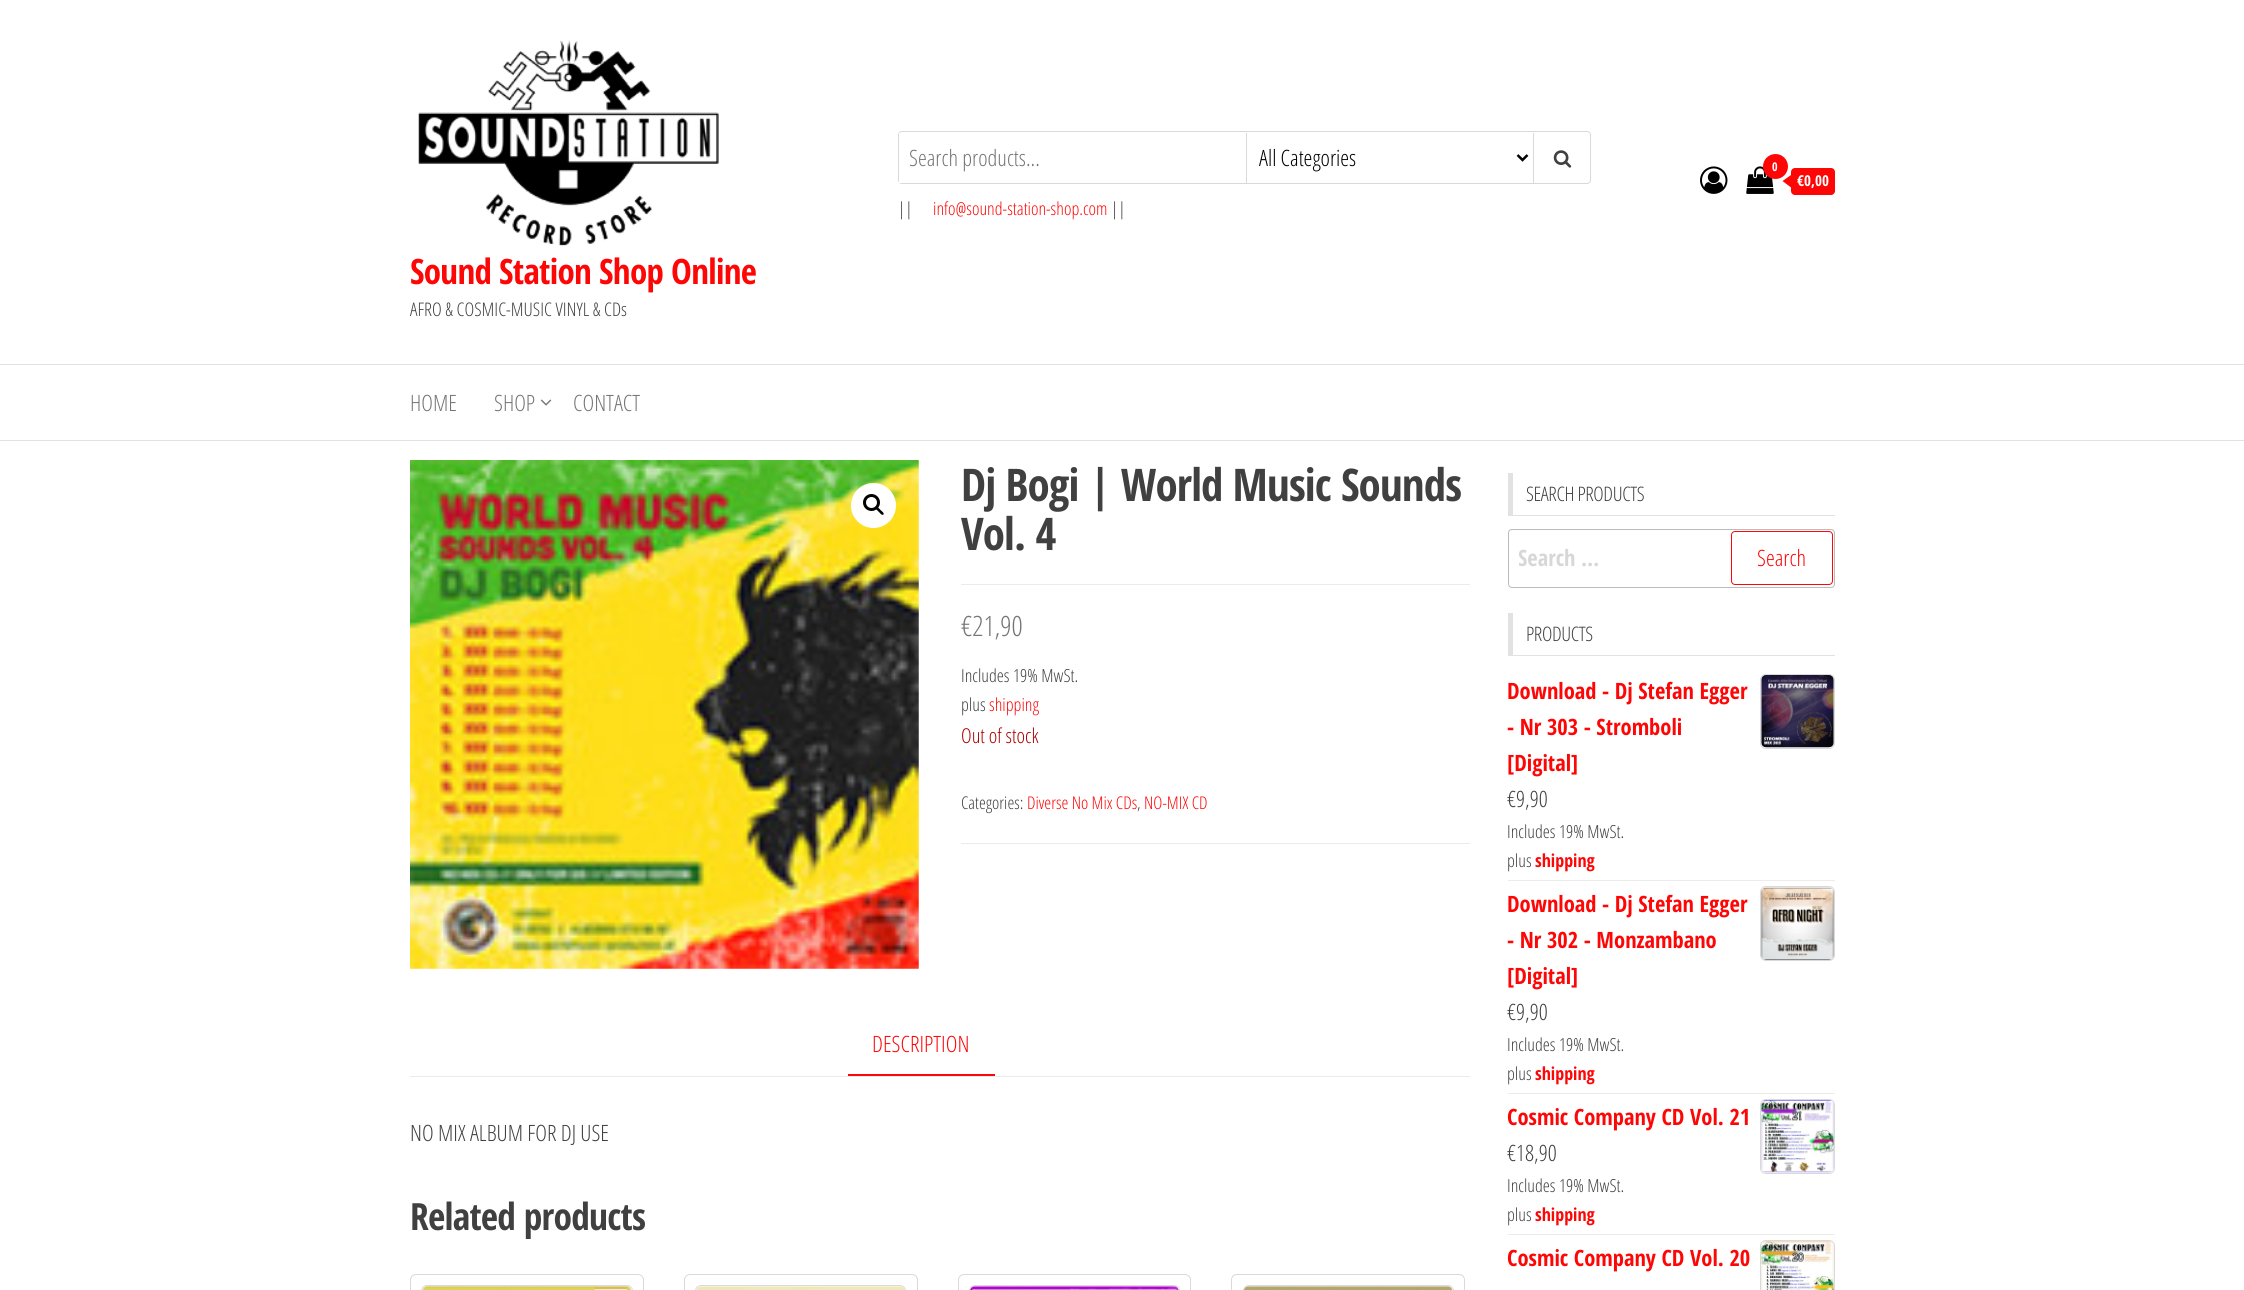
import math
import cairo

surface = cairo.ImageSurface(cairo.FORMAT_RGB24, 2244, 1290)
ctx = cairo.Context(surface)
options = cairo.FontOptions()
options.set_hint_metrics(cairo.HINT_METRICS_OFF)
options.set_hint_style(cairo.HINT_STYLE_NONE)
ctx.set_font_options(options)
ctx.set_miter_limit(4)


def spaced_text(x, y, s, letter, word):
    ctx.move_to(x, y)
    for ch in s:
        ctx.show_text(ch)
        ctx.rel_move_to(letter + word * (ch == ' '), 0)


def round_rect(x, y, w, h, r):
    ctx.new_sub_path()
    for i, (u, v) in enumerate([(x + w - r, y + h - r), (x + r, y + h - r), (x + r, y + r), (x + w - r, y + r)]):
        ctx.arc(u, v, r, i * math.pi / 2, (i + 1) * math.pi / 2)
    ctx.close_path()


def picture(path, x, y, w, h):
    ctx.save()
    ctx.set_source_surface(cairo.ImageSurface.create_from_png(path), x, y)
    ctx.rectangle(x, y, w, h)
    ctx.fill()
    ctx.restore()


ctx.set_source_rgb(1, 1, 1)
ctx.paint()
round_rect(898.5, 131.5, 692, 52, 3.5)
ctx.set_source_rgb(0.851, 0.851, 0.851)
ctx.set_line_width(1)
ctx.stroke()
ctx.set_source_rgb(1, 1, 1)
ctx.rectangle(899, 133, 3, 50)
ctx.fill()
ctx.set_source_rgb(0.851, 0.851, 0.851)
ctx.rectangle(1246, 133, 1, 50)
ctx.fill()
ctx.select_font_face("Open Sans Condensed Light")
ctx.set_font_size(22.5)
ctx.set_source_rgb(0.459, 0.459, 0.459)
ctx.move_to(909, 166)
ctx.show_text("Search products...")
ctx.new_path()
ctx.move_to(1517.5, 155)
ctx.line_to(1522.5, 160)
ctx.line_to(1527.5, 155)
ctx.set_source_rgb(0, 0, 0)
ctx.set_line_width(2.5)
ctx.stroke()
ctx.move_to(1259, 166)
ctx.show_text("All Categories")
ctx.set_source_rgb(0.851, 0.851, 0.851)
ctx.rectangle(1533, 133, 1, 50)
ctx.fill()
picture("img1.png", 1553, 150, 19, 18)
ctx.set_font_size(18)
ctx.set_source_rgb(0.251, 0.251, 0.251)
ctx.move_to(898, 215)
ctx.show_text("||")
ctx.set_source_rgb(1, 0.027, 0.027)
ctx.move_to(933, 215)
ctx.show_text("info@sound-station-shop.com")
ctx.set_source_rgb(0.251, 0.251, 0.251)
ctx.move_to(1111, 215)
ctx.show_text("||")
picture("img2.png", 1700, 166, 28, 28)
picture("img3.png", 1746, 166, 28, 28)
ctx.set_source_rgb(1, 0.027, 0.027)
ctx.arc(1775.5, 166.5, 12.5, 0, 2 * math.pi)
ctx.fill()
ctx.select_font_face("Open Sans Condensed", cairo.FONT_SLANT_NORMAL, cairo.FONT_WEIGHT_BOLD)
ctx.set_font_size(12)
ctx.set_source_rgb(1, 1, 1)
ctx.move_to(1772, 171)
ctx.show_text("0")
ctx.set_source_rgb(1, 0.027, 0.027)
round_rect(1791, 168, 44, 27, 4)
ctx.fill()
ctx.new_path()
ctx.move_to(1791, 175)
ctx.line_to(1791, 187.5)
ctx.line_to(1782.5, 181)
ctx.close_path()
ctx.fill()
ctx.set_font_size(15)
ctx.set_source_rgb(1, 1, 1)
ctx.move_to(1797, 186)
ctx.show_text("€0,00")
picture("img4.png", 418, 40, 301, 206)
ctx.set_font_size(35)
ctx.set_source_rgb(1, 0.027, 0.027)
spaced_text(410, 284, "Sound Station Shop Online", -0.7, 0)
ctx.select_font_face("Open Sans Condensed Light")
ctx.set_font_size(18.75)
ctx.set_source_rgb(0.251, 0.251, 0.251)
ctx.move_to(410, 316)
ctx.show_text("AFRO & COSMIC-MUSIC VINYL & CDs")
ctx.set_source_rgb(0.886, 0.886, 0.886)
ctx.rectangle(0, 364, 2244, 1)
ctx.fill()
ctx.rectangle(0, 440, 2244, 1)
ctx.fill()
ctx.set_font_size(22.5)
ctx.set_source_rgb(0.459, 0.459, 0.459)
ctx.move_to(410, 411)
ctx.show_text("HOME")
ctx.move_to(494, 411)
ctx.show_text("SHOP")
picture("img5.png", 540, 399, 12, 7)
ctx.move_to(573, 411)
ctx.show_text("CONTACT")
picture("img6.png", 410, 460, 509, 509)
ctx.set_source_rgb(1, 1, 1)
ctx.arc(873.5, 505.5, 22.5, 0, 2 * math.pi)
ctx.fill()
ctx.arc(871.5, 502.5, 7, 0, 2 * math.pi)
ctx.set_source_rgb(0, 0, 0)
ctx.set_line_width(3)
ctx.stroke()
ctx.new_path()
ctx.move_to(876, 507.5)
ctx.curve_to(877.5, 506, 880, 509.5, 880.5, 510)
ctx.curve_to(881.5, 511, 884.5, 513, 883.5, 514.5)
ctx.curve_to(882, 516, 879.5, 512.5, 879, 512)
ctx.curve_to(878, 511, 875, 509, 876, 507.5)
ctx.close_path()
ctx.fill()
ctx.set_source_rgb(0.918, 0.918, 0.918)
ctx.rectangle(961, 584, 509, 1)
ctx.fill()
ctx.select_font_face("Open Sans Condensed", cairo.FONT_SLANT_NORMAL, cairo.FONT_WEIGHT_BOLD)
ctx.set_font_size(45)
ctx.set_source_rgb(0.251, 0.251, 0.251)
spaced_text(961, 501, "Dj Bogi | World Music Sounds", -0.9, 0)
spaced_text(961, 550, "Vol. 4", -0.9, 0)
ctx.select_font_face("Open Sans Condensed Light")
ctx.set_font_size(28)
ctx.set_source_rgb(0.459, 0.459, 0.459)
ctx.move_to(961, 636)
ctx.show_text("€21,90")
ctx.set_font_size(18)
ctx.set_source_rgb(0.251, 0.251, 0.251)
ctx.move_to(961, 682)
ctx.show_text("Includes 19% MwSt.")
ctx.move_to(961, 711)
ctx.show_text("plus")
ctx.set_source_rgb(1, 0.027, 0.027)
ctx.move_to(989, 711)
ctx.show_text("shipping")
ctx.set_font_size(20.5)
ctx.set_source_rgb(0.667, 0, 0)
ctx.move_to(961, 743)
ctx.show_text("Out of stock")
ctx.set_source_rgb(0.918, 0.918, 0.918)
ctx.rectangle(961, 843, 509, 1)
ctx.fill()
ctx.set_font_size(17.5)
ctx.set_source_rgb(0.251, 0.251, 0.251)
ctx.move_to(961, 809)
ctx.show_text("Categories:")
ctx.set_source_rgb(1, 0.027, 0.027)
ctx.move_to(1027, 809)
ctx.show_text("Diverse No Mix CDs")
ctx.set_source_rgb(0.251, 0.251, 0.251)
ctx.move_to(1137, 809)
ctx.show_text(",")
ctx.set_source_rgb(1, 0.027, 0.027)
ctx.move_to(1144, 809)
ctx.show_text("NO-MIX CD")
ctx.set_source_rgb(0.918, 0.918, 0.918)
ctx.rectangle(410, 1076, 1060, 1)
ctx.fill()
ctx.set_source_rgb(1, 0.027, 0.027)
ctx.rectangle(848, 1074, 147, 2)
ctx.fill()
ctx.set_font_size(22.5)
ctx.move_to(872, 1052)
ctx.show_text("DESCRIPTION")
ctx.set_source_rgb(0.251, 0.251, 0.251)
ctx.move_to(410, 1141)
ctx.show_text("NO MIX ALBUM FOR DJ USE")
ctx.select_font_face("Open Sans Condensed", cairo.FONT_SLANT_NORMAL, cairo.FONT_WEIGHT_BOLD)
ctx.set_font_size(37.5)
spaced_text(410, 1230, "Related products", -0.75, 0)
round_rect(410.5, 1274.5, 233, 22, 5.5)
ctx.set_source_rgb(0.851, 0.851, 0.851)
ctx.set_line_width(1)
ctx.stroke()
round_rect(421.5, 1285.5, 211, 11, 5.5)
ctx.stroke()
picture("img7.png", 422, 1286, 209, 4)
round_rect(684.5, 1274.5, 233, 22, 5.5)
ctx.stroke()
round_rect(695.5, 1285.5, 210, 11, 5.5)
ctx.stroke()
picture("img8.png", 696, 1286, 209, 4)
round_rect(958.5, 1274.5, 232, 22, 5.5)
ctx.stroke()
round_rect(969.5, 1285.5, 210, 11, 5.5)
ctx.stroke()
picture("img9.png", 970, 1286, 209, 4)
round_rect(1231.5, 1274.5, 233, 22, 5.5)
ctx.stroke()
round_rect(1243.5, 1285.5, 210, 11, 5.5)
ctx.stroke()
picture("img10.png", 1244, 1286, 209, 4)
ctx.set_source_rgb(0.886, 0.886, 0.886)
ctx.rectangle(1508, 515, 327, 1)
ctx.fill()
ctx.rectangle(1508, 473, 5, 42)
ctx.fill()
ctx.select_font_face("Open Sans Condensed Light")
ctx.set_font_size(20)
ctx.set_source_rgb(0.251, 0.251, 0.251)
spaced_text(1526, 501, "SEARCH PRODUCTS", -0.4, 0)
round_rect(1508.5, 529.5, 326, 58, 3.5)
ctx.set_source_rgb(0.733, 0.733, 0.733)
ctx.stroke()
ctx.save()
ctx.rectangle(1519, 543, 197, 30)
ctx.clip()
ctx.select_font_face("Open Sans Condensed", cairo.FONT_SLANT_NORMAL, cairo.FONT_WEIGHT_BOLD)
ctx.set_font_size(22.5)
ctx.set_source_rgb(0.843, 0.843, 0.843)
ctx.move_to(1518, 566)
ctx.show_text("Search …")
ctx.restore()
round_rect(1731.5, 531.5, 101, 53, 3.5)
ctx.set_source_rgb(1, 0.027, 0.027)
ctx.stroke()
ctx.set_font_size(22.5)
ctx.move_to(1757, 566)
ctx.show_text("Search")
ctx.set_source_rgb(0.886, 0.886, 0.886)
ctx.rectangle(1508, 655, 327, 1)
ctx.fill()
ctx.rectangle(1508, 613, 5, 42)
ctx.fill()
ctx.set_font_size(20)
ctx.set_source_rgb(0.251, 0.251, 0.251)
spaced_text(1526, 641, "PRODUCTS", -0.4, 0)
ctx.set_source_rgb(0.922, 0.922, 0.922)
ctx.rectangle(1508, 880, 327, 1)
ctx.fill()
ctx.select_font_face("Open Sans Condensed", cairo.FONT_SLANT_NORMAL, cairo.FONT_WEIGHT_BOLD)
ctx.set_font_size(22.5)
ctx.set_source_rgb(1, 0.027, 0.027)
ctx.move_to(1507, 699)
ctx.show_text("Download - Dj Stefan Egger")
round_rect(1760.5, 674.5, 74, 74, 5.5)
ctx.set_source_rgb(0.851, 0.851, 0.851)
ctx.stroke()
picture("img11.png", 1761, 675, 73, 73)
ctx.set_source_rgb(1, 0.027, 0.027)
ctx.move_to(1507, 735)
ctx.show_text("- Nr 303 - Stromboli")
ctx.move_to(1507, 771)
ctx.show_text("[Digital]")
ctx.select_font_face("Open Sans Condensed Light")
ctx.set_source_rgb(0.251, 0.251, 0.251)
ctx.move_to(1507, 807)
ctx.show_text("€9,90")
ctx.set_font_size(18)
ctx.move_to(1507, 838)
ctx.show_text("Includes 19% MwSt.")
ctx.move_to(1507, 867)
ctx.show_text("plus")
ctx.select_font_face("Open Sans Condensed", cairo.FONT_SLANT_NORMAL, cairo.FONT_WEIGHT_BOLD)
ctx.set_source_rgb(1, 0.027, 0.027)
ctx.move_to(1535, 867)
ctx.show_text("shipping")
ctx.set_source_rgb(0.922, 0.922, 0.922)
ctx.rectangle(1508, 1093, 327, 1)
ctx.fill()
ctx.set_font_size(22.5)
ctx.set_source_rgb(1, 0.027, 0.027)
ctx.move_to(1507, 912)
ctx.show_text("Download - Dj Stefan Egger")
round_rect(1760.5, 886.5, 74, 74, 5.5)
ctx.set_source_rgb(0.851, 0.851, 0.851)
ctx.stroke()
picture("img12.png", 1761, 887, 73, 73)
ctx.set_source_rgb(1, 0.027, 0.027)
ctx.move_to(1507, 948)
ctx.show_text("- Nr 302 - Monzambano")
ctx.move_to(1507, 984)
ctx.show_text("[Digital]")
ctx.select_font_face("Open Sans Condensed Light")
ctx.set_source_rgb(0.251, 0.251, 0.251)
ctx.move_to(1507, 1020)
ctx.show_text("€9,90")
ctx.set_font_size(18)
ctx.move_to(1507, 1051)
ctx.show_text("Includes 19% MwSt.")
ctx.move_to(1507, 1080)
ctx.show_text("plus")
ctx.select_font_face("Open Sans Condensed", cairo.FONT_SLANT_NORMAL, cairo.FONT_WEIGHT_BOLD)
ctx.set_source_rgb(1, 0.027, 0.027)
ctx.move_to(1535, 1080)
ctx.show_text("shipping")
ctx.set_source_rgb(0.922, 0.922, 0.922)
ctx.rectangle(1508, 1234, 327, 1)
ctx.fill()
ctx.set_font_size(22.5)
ctx.set_source_rgb(1, 0.027, 0.027)
ctx.move_to(1507, 1125)
ctx.show_text("Cosmic Company CD Vol. 21")
round_rect(1760.5, 1099.5, 74, 74, 5.5)
ctx.set_source_rgb(0.851, 0.851, 0.851)
ctx.stroke()
picture("img13.png", 1761, 1100, 73, 73)
ctx.select_font_face("Open Sans Condensed Light")
ctx.set_source_rgb(0.251, 0.251, 0.251)
ctx.move_to(1507, 1161)
ctx.show_text("€18,90")
ctx.set_font_size(18)
ctx.move_to(1507, 1192)
ctx.show_text("Includes 19% MwSt.")
ctx.move_to(1507, 1221)
ctx.show_text("plus")
ctx.select_font_face("Open Sans Condensed", cairo.FONT_SLANT_NORMAL, cairo.FONT_WEIGHT_BOLD)
ctx.set_source_rgb(1, 0.027, 0.027)
ctx.move_to(1535, 1221)
ctx.show_text("shipping")
ctx.set_font_size(22.5)
ctx.move_to(1507, 1266)
ctx.show_text("Cosmic Company CD Vol. 20")
round_rect(1760.5, 1240.5, 74, 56, 5.5)
ctx.set_source_rgb(0.851, 0.851, 0.851)
ctx.stroke()
picture("img14.png", 1761, 1241, 73, 49)
surface.write_to_png("page.png")
